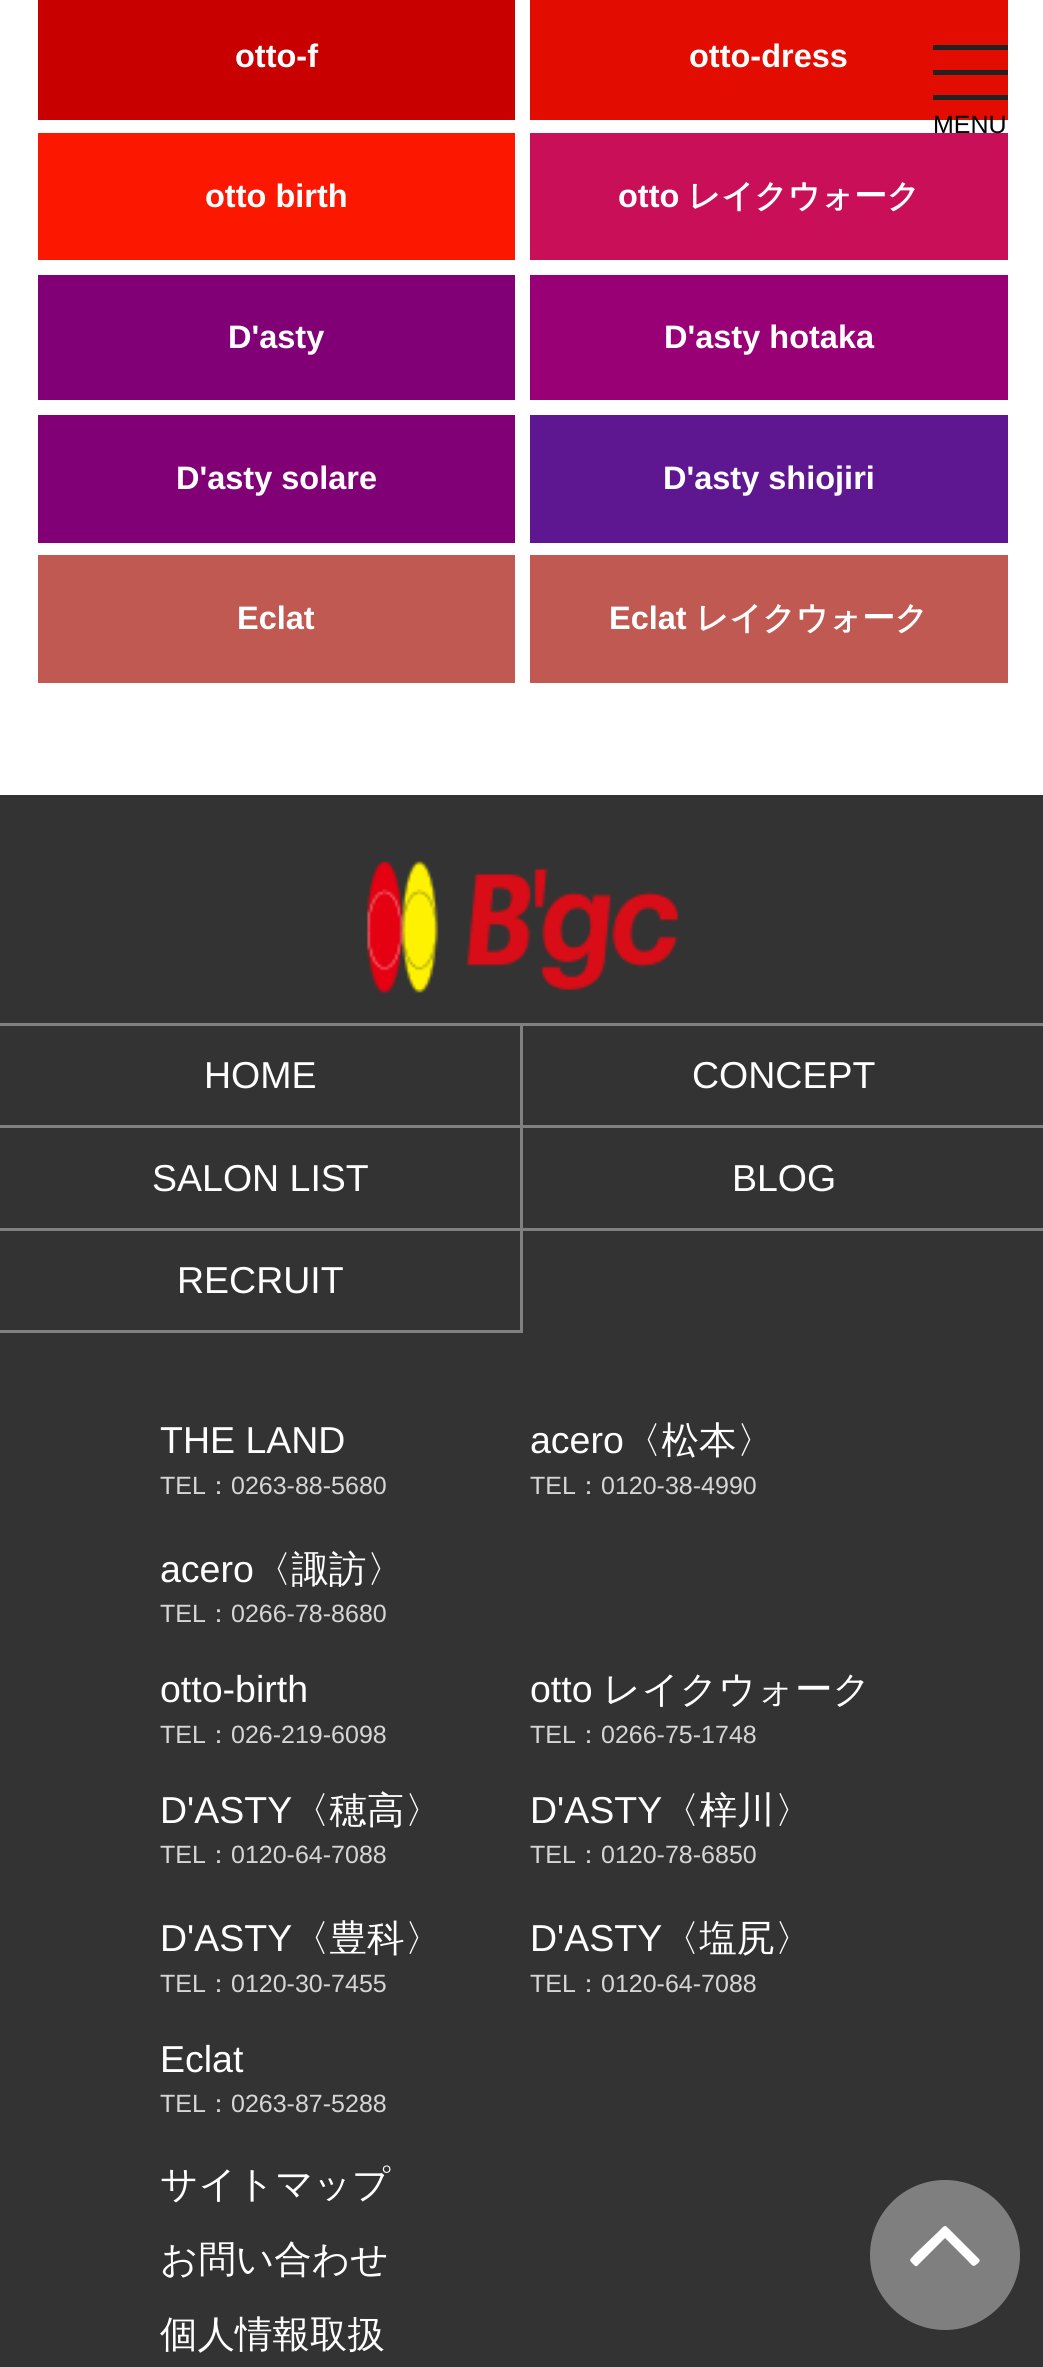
import math
import cairo

surface = cairo.ImageSurface(cairo.FORMAT_RGB24, 1043, 2367)
ctx = cairo.Context(surface)
options = cairo.FontOptions()
options.set_hint_metrics(cairo.HINT_METRICS_OFF)
options.set_hint_style(cairo.HINT_STYLE_NONE)
ctx.set_font_options(options)
ctx.set_miter_limit(4)


def picture(path, x, y, w, h):
    ctx.save()
    ctx.set_source_surface(cairo.ImageSurface.create_from_png(path), x, y)
    ctx.rectangle(x, y, w, h)
    ctx.fill()
    ctx.restore()


ctx.set_source_rgb(1, 1, 1)
ctx.paint()
ctx.set_source_rgb(0.784, 0, 0)
ctx.rectangle(38, 0, 477, 120)
ctx.fill()
ctx.select_font_face("Liberation Sans", cairo.FONT_SLANT_NORMAL, cairo.FONT_WEIGHT_BOLD)
ctx.set_font_size(32.5)
ctx.set_source_rgb(1, 1, 1)
ctx.move_to(235, 67)
ctx.show_text("otto-f")
ctx.set_source_rgb(0.886, 0.047, 0)
ctx.rectangle(530, 0, 478, 120)
ctx.fill()
ctx.set_source_rgb(1, 1, 1)
ctx.move_to(689, 67)
ctx.show_text("otto-dress")
ctx.set_source_rgb(0.988, 0.094, 0)
ctx.rectangle(38, 133, 477, 127)
ctx.fill()
ctx.set_source_rgb(1, 1, 1)
ctx.move_to(205, 207)
ctx.show_text("otto birth")
ctx.set_source_rgb(0.788, 0.059, 0.345)
ctx.rectangle(530, 133, 478, 127)
ctx.fill()
ctx.set_source_rgb(1, 1, 1)
ctx.move_to(618, 207)
ctx.show_text("otto")
ctx.select_font_face("WenQuanYi Zen Hei", cairo.FONT_SLANT_NORMAL, cairo.FONT_WEIGHT_BOLD)
ctx.move_to(688, 207)
ctx.show_text("レイクウォーク")
ctx.set_source_rgb(0.506, 0, 0.459)
ctx.rectangle(38, 275, 477, 125)
ctx.fill()
ctx.select_font_face("Liberation Sans", cairo.FONT_SLANT_NORMAL, cairo.FONT_WEIGHT_BOLD)
ctx.set_source_rgb(1, 1, 1)
ctx.move_to(228, 348)
ctx.show_text("D'asty")
ctx.set_source_rgb(0.604, 0, 0.463)
ctx.rectangle(530, 275, 478, 125)
ctx.fill()
ctx.set_source_rgb(1, 1, 1)
ctx.move_to(664, 348)
ctx.show_text("D'asty hotaka")
ctx.set_source_rgb(0.51, 0, 0.463)
ctx.rectangle(38, 415, 477, 128)
ctx.fill()
ctx.set_source_rgb(1, 1, 1)
ctx.move_to(176, 489)
ctx.show_text("D'asty solare")
ctx.set_source_rgb(0.369, 0.09, 0.565)
ctx.rectangle(530, 415, 478, 128)
ctx.fill()
ctx.set_source_rgb(1, 1, 1)
ctx.move_to(663, 489)
ctx.show_text("D'asty shiojiri")
ctx.set_source_rgb(0.749, 0.349, 0.322)
ctx.rectangle(38, 555, 477, 128)
ctx.fill()
ctx.set_source_rgb(1, 1, 1)
ctx.move_to(237, 629)
ctx.show_text("Eclat")
ctx.set_source_rgb(0.749, 0.349, 0.322)
ctx.rectangle(530, 555, 478, 128)
ctx.fill()
ctx.set_source_rgb(1, 1, 1)
ctx.move_to(609, 629)
ctx.show_text("Eclat")
ctx.select_font_face("WenQuanYi Zen Hei", cairo.FONT_SLANT_NORMAL, cairo.FONT_WEIGHT_BOLD)
ctx.move_to(696, 629)
ctx.show_text("レイクウォーク")
ctx.set_source_rgb(0.133, 0.133, 0.133)
ctx.rectangle(933, 70, 75, 5)
ctx.fill()
ctx.rectangle(933, 45, 75, 5)
ctx.fill()
ctx.rectangle(933, 95, 75, 5)
ctx.fill()
ctx.select_font_face("Liberation Sans")
ctx.set_font_size(25)
ctx.set_source_rgb(0, 0, 0)
ctx.move_to(933, 133)
ctx.show_text("MENU")
ctx.set_source_rgb(0.2, 0.2, 0.2)
ctx.rectangle(0, 795, 1043, 1572)
ctx.fill()
picture("img1.png", 366, 861, 313, 132)
ctx.set_source_rgb(0.502, 0.502, 0.502)
ctx.rectangle(0, 1023, 1043, 3)
ctx.fill()
ctx.rectangle(520, 1025, 3, 205)
ctx.fill()
ctx.rectangle(0, 1125, 1043, 3)
ctx.fill()
ctx.set_font_size(37.5)
ctx.set_source_rgb(1, 1, 1)
ctx.move_to(204, 1088)
ctx.show_text("HOME")
ctx.move_to(692, 1088)
ctx.show_text("CONCEPT")
ctx.set_source_rgb(0.502, 0.502, 0.502)
ctx.rectangle(0, 1228, 1043, 3)
ctx.fill()
ctx.set_source_rgb(1, 1, 1)
ctx.move_to(152, 1191)
ctx.show_text("SALON LIST")
ctx.move_to(732, 1191)
ctx.show_text("BLOG")
ctx.set_source_rgb(0.502, 0.502, 0.502)
ctx.rectangle(520, 1230, 3, 103)
ctx.fill()
ctx.rectangle(0, 1330, 523, 3)
ctx.fill()
ctx.set_source_rgb(1, 1, 1)
ctx.move_to(177, 1293)
ctx.show_text("RECRUIT")
ctx.move_to(160, 1453)
ctx.show_text("THE LAND")
ctx.set_font_size(25)
ctx.set_source_rgb(0.839, 0.839, 0.839)
ctx.move_to(160, 1494)
ctx.show_text("TEL")
ctx.select_font_face("WenQuanYi Zen Hei Medium")
ctx.move_to(206, 1494)
ctx.show_text("：")
ctx.select_font_face("Liberation Sans")
ctx.move_to(231, 1494)
ctx.show_text("0263-88-5680")
ctx.set_font_size(37.5)
ctx.set_source_rgb(1, 1, 1)
ctx.move_to(530, 1453)
ctx.show_text("acero")
ctx.select_font_face("WenQuanYi Zen Hei Medium")
ctx.move_to(624, 1453)
ctx.show_text("〈松本〉")
ctx.select_font_face("Liberation Sans")
ctx.set_font_size(25)
ctx.set_source_rgb(0.839, 0.839, 0.839)
ctx.move_to(530, 1494)
ctx.show_text("TEL")
ctx.select_font_face("WenQuanYi Zen Hei Medium")
ctx.move_to(576, 1494)
ctx.show_text("：")
ctx.select_font_face("Liberation Sans")
ctx.move_to(601, 1494)
ctx.show_text("0120-38-4990")
ctx.set_font_size(37.5)
ctx.set_source_rgb(1, 1, 1)
ctx.move_to(160, 1582)
ctx.show_text("acero")
ctx.select_font_face("WenQuanYi Zen Hei Medium")
ctx.move_to(254, 1582)
ctx.show_text("〈諏訪〉")
ctx.select_font_face("Liberation Sans")
ctx.set_font_size(25)
ctx.set_source_rgb(0.839, 0.839, 0.839)
ctx.move_to(160, 1622)
ctx.show_text("TEL")
ctx.select_font_face("WenQuanYi Zen Hei Medium")
ctx.move_to(206, 1622)
ctx.show_text("：")
ctx.select_font_face("Liberation Sans")
ctx.move_to(231, 1622)
ctx.show_text("0266-78-8680")
ctx.set_font_size(37.5)
ctx.set_source_rgb(1, 1, 1)
ctx.move_to(160, 1702)
ctx.show_text("otto-birth")
ctx.set_font_size(25)
ctx.set_source_rgb(0.839, 0.839, 0.839)
ctx.move_to(160, 1743)
ctx.show_text("TEL")
ctx.select_font_face("WenQuanYi Zen Hei Medium")
ctx.move_to(206, 1743)
ctx.show_text("：")
ctx.select_font_face("Liberation Sans")
ctx.move_to(231, 1743)
ctx.show_text("026-219-6098")
ctx.set_font_size(37.5)
ctx.set_source_rgb(1, 1, 1)
ctx.move_to(530, 1702)
ctx.show_text("otto")
ctx.select_font_face("WenQuanYi Zen Hei Medium")
ctx.move_to(603, 1702)
ctx.show_text("レイクウォーク")
ctx.select_font_face("Liberation Sans")
ctx.set_font_size(25)
ctx.set_source_rgb(0.839, 0.839, 0.839)
ctx.move_to(530, 1743)
ctx.show_text("TEL")
ctx.select_font_face("WenQuanYi Zen Hei Medium")
ctx.move_to(576, 1743)
ctx.show_text("：")
ctx.select_font_face("Liberation Sans")
ctx.move_to(601, 1743)
ctx.show_text("0266-75-1748")
ctx.set_font_size(37.5)
ctx.set_source_rgb(1, 1, 1)
ctx.move_to(160, 1823)
ctx.show_text("D'ASTY")
ctx.select_font_face("WenQuanYi Zen Hei Medium")
ctx.move_to(292, 1823)
ctx.show_text("〈穂高〉")
ctx.select_font_face("Liberation Sans")
ctx.set_font_size(25)
ctx.set_source_rgb(0.839, 0.839, 0.839)
ctx.move_to(160, 1863)
ctx.show_text("TEL")
ctx.select_font_face("WenQuanYi Zen Hei Medium")
ctx.move_to(206, 1863)
ctx.show_text("：")
ctx.select_font_face("Liberation Sans")
ctx.move_to(231, 1863)
ctx.show_text("0120-64-7088")
ctx.set_font_size(37.5)
ctx.set_source_rgb(1, 1, 1)
ctx.move_to(530, 1823)
ctx.show_text("D'ASTY")
ctx.select_font_face("WenQuanYi Zen Hei Medium")
ctx.move_to(662, 1823)
ctx.show_text("〈梓川〉")
ctx.select_font_face("Liberation Sans")
ctx.set_font_size(25)
ctx.set_source_rgb(0.839, 0.839, 0.839)
ctx.move_to(530, 1863)
ctx.show_text("TEL")
ctx.select_font_face("WenQuanYi Zen Hei Medium")
ctx.move_to(576, 1863)
ctx.show_text("：")
ctx.select_font_face("Liberation Sans")
ctx.move_to(601, 1863)
ctx.show_text("0120-78-6850")
ctx.set_font_size(37.5)
ctx.set_source_rgb(1, 1, 1)
ctx.move_to(160, 1951)
ctx.show_text("D'ASTY")
ctx.select_font_face("WenQuanYi Zen Hei Medium")
ctx.move_to(292, 1951)
ctx.show_text("〈豊科〉")
ctx.select_font_face("Liberation Sans")
ctx.set_font_size(25)
ctx.set_source_rgb(0.839, 0.839, 0.839)
ctx.move_to(160, 1992)
ctx.show_text("TEL")
ctx.select_font_face("WenQuanYi Zen Hei Medium")
ctx.move_to(206, 1992)
ctx.show_text("：")
ctx.select_font_face("Liberation Sans")
ctx.move_to(231, 1992)
ctx.show_text("0120-30-7455")
ctx.set_font_size(37.5)
ctx.set_source_rgb(1, 1, 1)
ctx.move_to(530, 1951)
ctx.show_text("D'ASTY")
ctx.select_font_face("WenQuanYi Zen Hei Medium")
ctx.move_to(662, 1951)
ctx.show_text("〈塩尻〉")
ctx.select_font_face("Liberation Sans")
ctx.set_font_size(25)
ctx.set_source_rgb(0.839, 0.839, 0.839)
ctx.move_to(530, 1992)
ctx.show_text("TEL")
ctx.select_font_face("WenQuanYi Zen Hei Medium")
ctx.move_to(576, 1992)
ctx.show_text("：")
ctx.select_font_face("Liberation Sans")
ctx.move_to(601, 1992)
ctx.show_text("0120-64-7088")
ctx.set_font_size(37.5)
ctx.set_source_rgb(1, 1, 1)
ctx.move_to(160, 2072)
ctx.show_text("Eclat")
ctx.set_font_size(25)
ctx.set_source_rgb(0.839, 0.839, 0.839)
ctx.move_to(160, 2112)
ctx.show_text("TEL")
ctx.select_font_face("WenQuanYi Zen Hei Medium")
ctx.move_to(206, 2112)
ctx.show_text("：")
ctx.select_font_face("Liberation Sans")
ctx.move_to(231, 2112)
ctx.show_text("0263-87-5288")
ctx.select_font_face("WenQuanYi Zen Hei Medium")
ctx.set_font_size(37.5)
ctx.set_source_rgb(1, 1, 1)
ctx.move_to(160, 2197)
ctx.show_text("サイトマップ")
ctx.move_to(160, 2272)
ctx.show_text("お問い合わせ")
ctx.move_to(160, 2347)
ctx.show_text("個人情報取扱")
ctx.set_source_rgb(0.502, 0.498, 0.498)
ctx.new_path()
ctx.arc(945, 2255, 75, 0, 2 * math.pi)
ctx.fill()
ctx.set_source_rgb(1, 1, 1)
ctx.new_path()
ctx.move_to(979, 2259)
ctx.curve_to(981, 2261, 978, 2263, 977, 2264)
ctx.curve_to(973, 2268, 972, 2265, 968, 2261)
ctx.line_to(945, 2238)
ctx.line_to(917, 2266)
ctx.curve_to(916, 2267, 914, 2265, 913, 2264)
ctx.curve_to(908, 2259, 910, 2260, 916, 2253)
ctx.line_to(938, 2232)
ctx.curve_to(946, 2224, 944, 2224, 952, 2232)
ctx.close_path()
ctx.fill()
surface.write_to_png("page.png")
